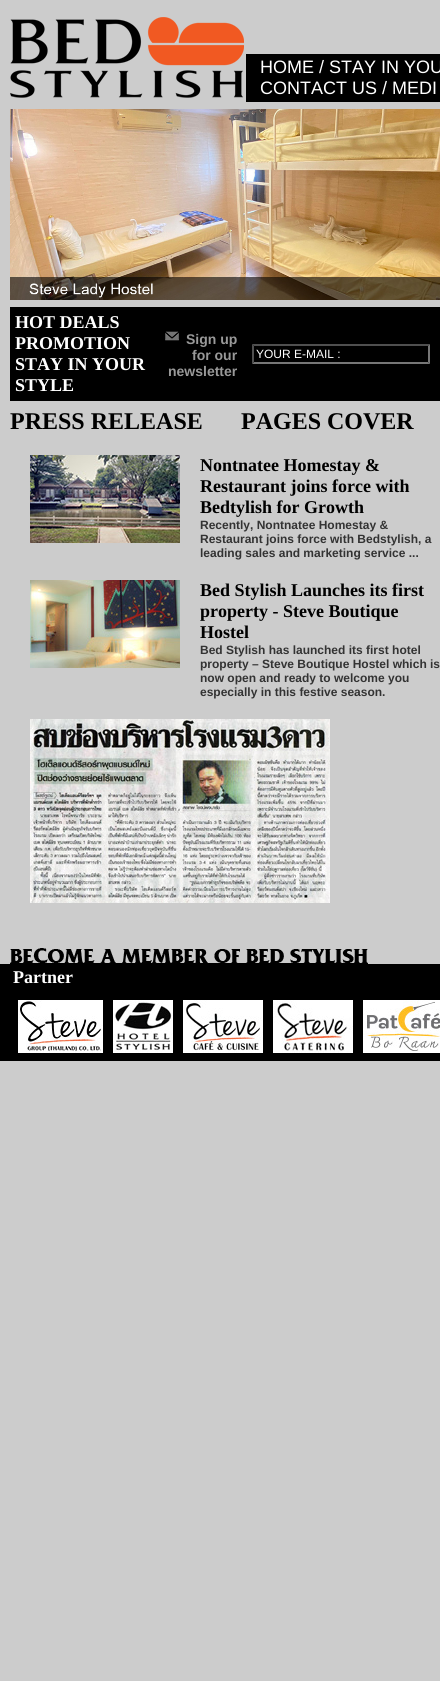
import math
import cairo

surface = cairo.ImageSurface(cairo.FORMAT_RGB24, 440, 1681)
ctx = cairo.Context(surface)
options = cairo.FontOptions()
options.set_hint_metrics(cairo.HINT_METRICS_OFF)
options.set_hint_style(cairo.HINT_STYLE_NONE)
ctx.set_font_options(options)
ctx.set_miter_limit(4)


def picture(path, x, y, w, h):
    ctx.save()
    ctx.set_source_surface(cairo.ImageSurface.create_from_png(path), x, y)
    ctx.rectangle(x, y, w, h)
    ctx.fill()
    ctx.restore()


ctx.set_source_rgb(0.8, 0.8, 0.8)
ctx.paint()
picture("img1.png", 10, 17, 234, 81)
ctx.set_source_rgb(0, 0, 0)
ctx.rectangle(246, 54, 194, 48)
ctx.fill()
ctx.select_font_face("Liberation Sans")
ctx.set_font_size(18)
ctx.set_source_rgb(1, 1, 1)
ctx.move_to(260, 73)
ctx.show_text("HOME / STAY IN YOU")
ctx.move_to(260, 94)
ctx.show_text("CONTACT US / MEDI")
picture("img2.png", 10, 109, 430, 191)
ctx.set_source_rgb(0, 0, 0)
ctx.rectangle(10, 307, 430, 94)
ctx.fill()
ctx.select_font_face("Liberation Serif", cairo.FONT_SLANT_NORMAL, cairo.FONT_WEIGHT_BOLD)
ctx.set_source_rgb(1, 1, 1)
ctx.move_to(15, 328)
ctx.show_text("HOT DEALS")
ctx.move_to(15, 349)
ctx.show_text("PROMOTION")
ctx.move_to(15, 370)
ctx.show_text("STAY IN YOUR")
ctx.move_to(15, 391)
ctx.show_text("STYLE")
picture("img3.png", 165, 331, 14, 10)
ctx.select_font_face("Liberation Sans", cairo.FONT_SLANT_NORMAL, cairo.FONT_WEIGHT_BOLD)
ctx.set_font_size(14)
ctx.set_source_rgb(0.6, 0.6, 0.6)
ctx.move_to(186, 344)
ctx.show_text("Sign up")
ctx.move_to(192, 360)
ctx.show_text("for our")
ctx.move_to(168, 376)
ctx.show_text("newsletter")
ctx.set_source_rgb(0.31, 0.31, 0.31)
ctx.new_path()
ctx.move_to(252, 344)
ctx.line_to(430, 344)
ctx.line_to(428, 346)
ctx.line_to(254, 346)
ctx.close_path()
ctx.fill()
ctx.set_source_rgb(0.463, 0.463, 0.463)
ctx.new_path()
ctx.move_to(430, 344)
ctx.line_to(430, 364)
ctx.line_to(428, 362)
ctx.line_to(428, 346)
ctx.close_path()
ctx.fill()
ctx.new_path()
ctx.move_to(430, 364)
ctx.line_to(252, 364)
ctx.line_to(254, 362)
ctx.line_to(428, 362)
ctx.close_path()
ctx.fill()
ctx.set_source_rgb(0.31, 0.31, 0.31)
ctx.new_path()
ctx.move_to(252, 364)
ctx.line_to(252, 344)
ctx.line_to(254, 346)
ctx.line_to(254, 362)
ctx.close_path()
ctx.fill()
ctx.select_font_face("Liberation Sans")
ctx.set_font_size(12)
ctx.set_source_rgb(1, 1, 1)
ctx.move_to(256, 358)
ctx.show_text("YOUR E-MAIL :")
ctx.select_font_face("Liberation Serif", cairo.FONT_SLANT_NORMAL, cairo.FONT_WEIGHT_BOLD)
ctx.set_font_size(24)
ctx.set_source_rgb(0, 0, 0)
ctx.move_to(10, 429)
ctx.show_text("PRESS RELEASE")
ctx.move_to(241, 429)
ctx.show_text("PAGES COVER")
picture("img4.png", 30, 455, 150, 88)
ctx.set_font_size(18)
ctx.move_to(200, 471)
ctx.show_text("Nontnatee Homestay &")
ctx.move_to(200, 492)
ctx.show_text("Restaurant joins force with")
ctx.move_to(200, 513)
ctx.show_text("Bedtylish for Growth")
ctx.select_font_face("Liberation Sans", cairo.FONT_SLANT_NORMAL, cairo.FONT_WEIGHT_BOLD)
ctx.set_font_size(12)
ctx.set_source_rgb(0.2, 0.2, 0.2)
ctx.move_to(200, 529)
ctx.show_text("Recently, Nontnatee Homestay &")
ctx.move_to(200, 543)
ctx.show_text("Restaurant joins force with Bedstylish, a")
ctx.move_to(200, 557)
ctx.show_text("leading sales and marketing service ...")
picture("img5.png", 30, 580, 150, 88)
ctx.select_font_face("Liberation Serif", cairo.FONT_SLANT_NORMAL, cairo.FONT_WEIGHT_BOLD)
ctx.set_font_size(18)
ctx.set_source_rgb(0, 0, 0)
ctx.move_to(200, 596)
ctx.show_text("Bed Stylish Launches its first")
ctx.move_to(200, 617)
ctx.show_text("property - Steve Boutique")
ctx.move_to(200, 638)
ctx.show_text("Hostel")
ctx.select_font_face("Liberation Sans", cairo.FONT_SLANT_NORMAL, cairo.FONT_WEIGHT_BOLD)
ctx.set_font_size(12)
ctx.set_source_rgb(0.2, 0.2, 0.2)
ctx.move_to(200, 654)
ctx.show_text("Bed Stylish has launched its first hotel")
ctx.move_to(200, 668)
ctx.show_text("property – Steve Boutique Hostel which is")
ctx.move_to(200, 682)
ctx.show_text("now open and ready to welcome you")
ctx.move_to(200, 696)
ctx.show_text("especially in this festive season.")
picture("img6.png", 30, 719, 300, 184)
picture("img7.png", 10, 948, 358, 16)
ctx.set_source_rgb(0, 0, 0)
ctx.rectangle(0, 964, 440, 97)
ctx.fill()
ctx.select_font_face("Liberation Serif", cairo.FONT_SLANT_NORMAL, cairo.FONT_WEIGHT_BOLD)
ctx.set_font_size(18)
ctx.set_source_rgb(1, 1, 1)
ctx.move_to(13, 983)
ctx.show_text("Partner")
picture("img8.png", 18, 1000, 85, 53)
picture("img9.png", 113, 1000, 60, 53)
picture("img10.png", 183, 1000, 80, 53)
picture("img11.png", 273, 1000, 80, 53)
picture("img12.png", 363, 1000, 77, 53)
surface.write_to_png("page.png")
